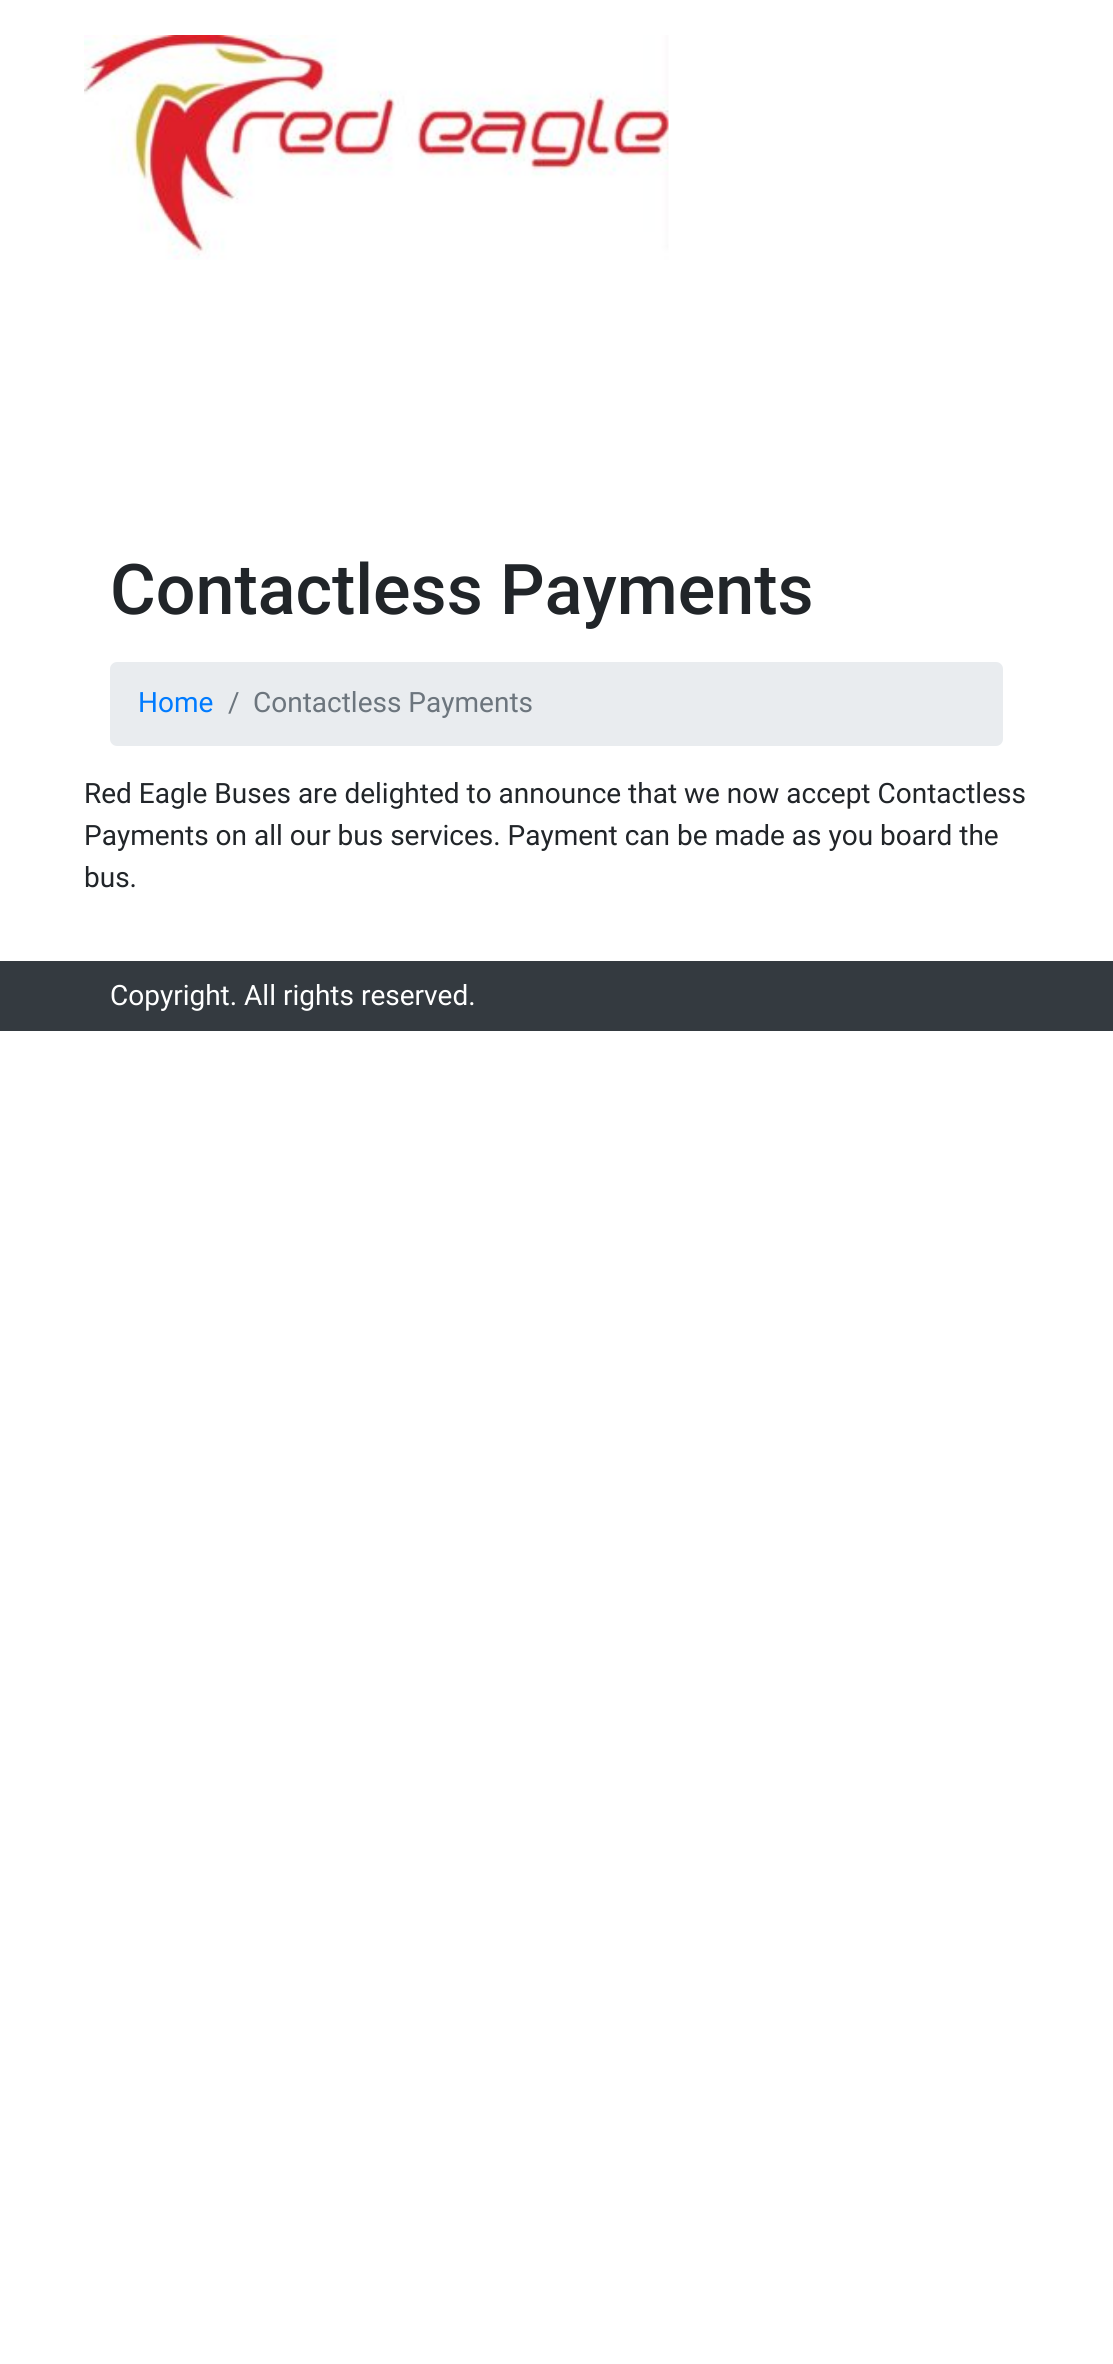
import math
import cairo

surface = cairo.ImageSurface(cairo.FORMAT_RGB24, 1113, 2364)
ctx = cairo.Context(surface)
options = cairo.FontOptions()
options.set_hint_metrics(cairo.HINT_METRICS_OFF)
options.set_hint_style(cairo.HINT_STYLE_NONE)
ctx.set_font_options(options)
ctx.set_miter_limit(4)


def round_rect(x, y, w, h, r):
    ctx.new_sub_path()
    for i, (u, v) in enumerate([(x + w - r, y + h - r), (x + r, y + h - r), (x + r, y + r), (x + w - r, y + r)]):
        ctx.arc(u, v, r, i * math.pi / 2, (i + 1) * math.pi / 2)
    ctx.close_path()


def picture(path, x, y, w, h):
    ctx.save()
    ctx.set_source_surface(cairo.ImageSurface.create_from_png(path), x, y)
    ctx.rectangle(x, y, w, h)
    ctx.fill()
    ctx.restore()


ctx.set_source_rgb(1, 1, 1)
ctx.paint()
picture("img1.png", 84, 35, 585, 225)
ctx.select_font_face("Roboto Medium")
ctx.set_font_size(70)
ctx.set_source_rgb(0.129, 0.145, 0.161)
ctx.move_to(110, 614)
ctx.show_text("Contactless Payments")
ctx.set_source_rgb(0.914, 0.925, 0.937)
round_rect(110, 662, 893, 84, 7)
ctx.fill()
ctx.select_font_face("Roboto")
ctx.set_font_size(28)
ctx.set_source_rgb(0, 0.482, 1)
ctx.move_to(138, 712)
ctx.show_text("Home")
ctx.set_source_rgb(0.424, 0.459, 0.49)
ctx.move_to(228, 712)
ctx.show_text("/")
ctx.move_to(253, 712)
ctx.show_text("Contactless Payments")
ctx.set_source_rgb(0.129, 0.145, 0.161)
ctx.move_to(84, 803)
ctx.show_text("Red Eagle Buses are delighted to announce that we now accept Contactless")
ctx.move_to(84, 845)
ctx.show_text("Payments on all our bus services. Payment can be made as you board the")
ctx.move_to(84, 887)
ctx.show_text("bus.")
ctx.set_source_rgb(0.204, 0.227, 0.251)
ctx.rectangle(0, 961, 1113, 70)
ctx.fill()
ctx.set_source_rgb(1, 1, 1)
ctx.move_to(110, 1005)
ctx.show_text("Copyright. All rights reserved.")
surface.write_to_png("page.png")
